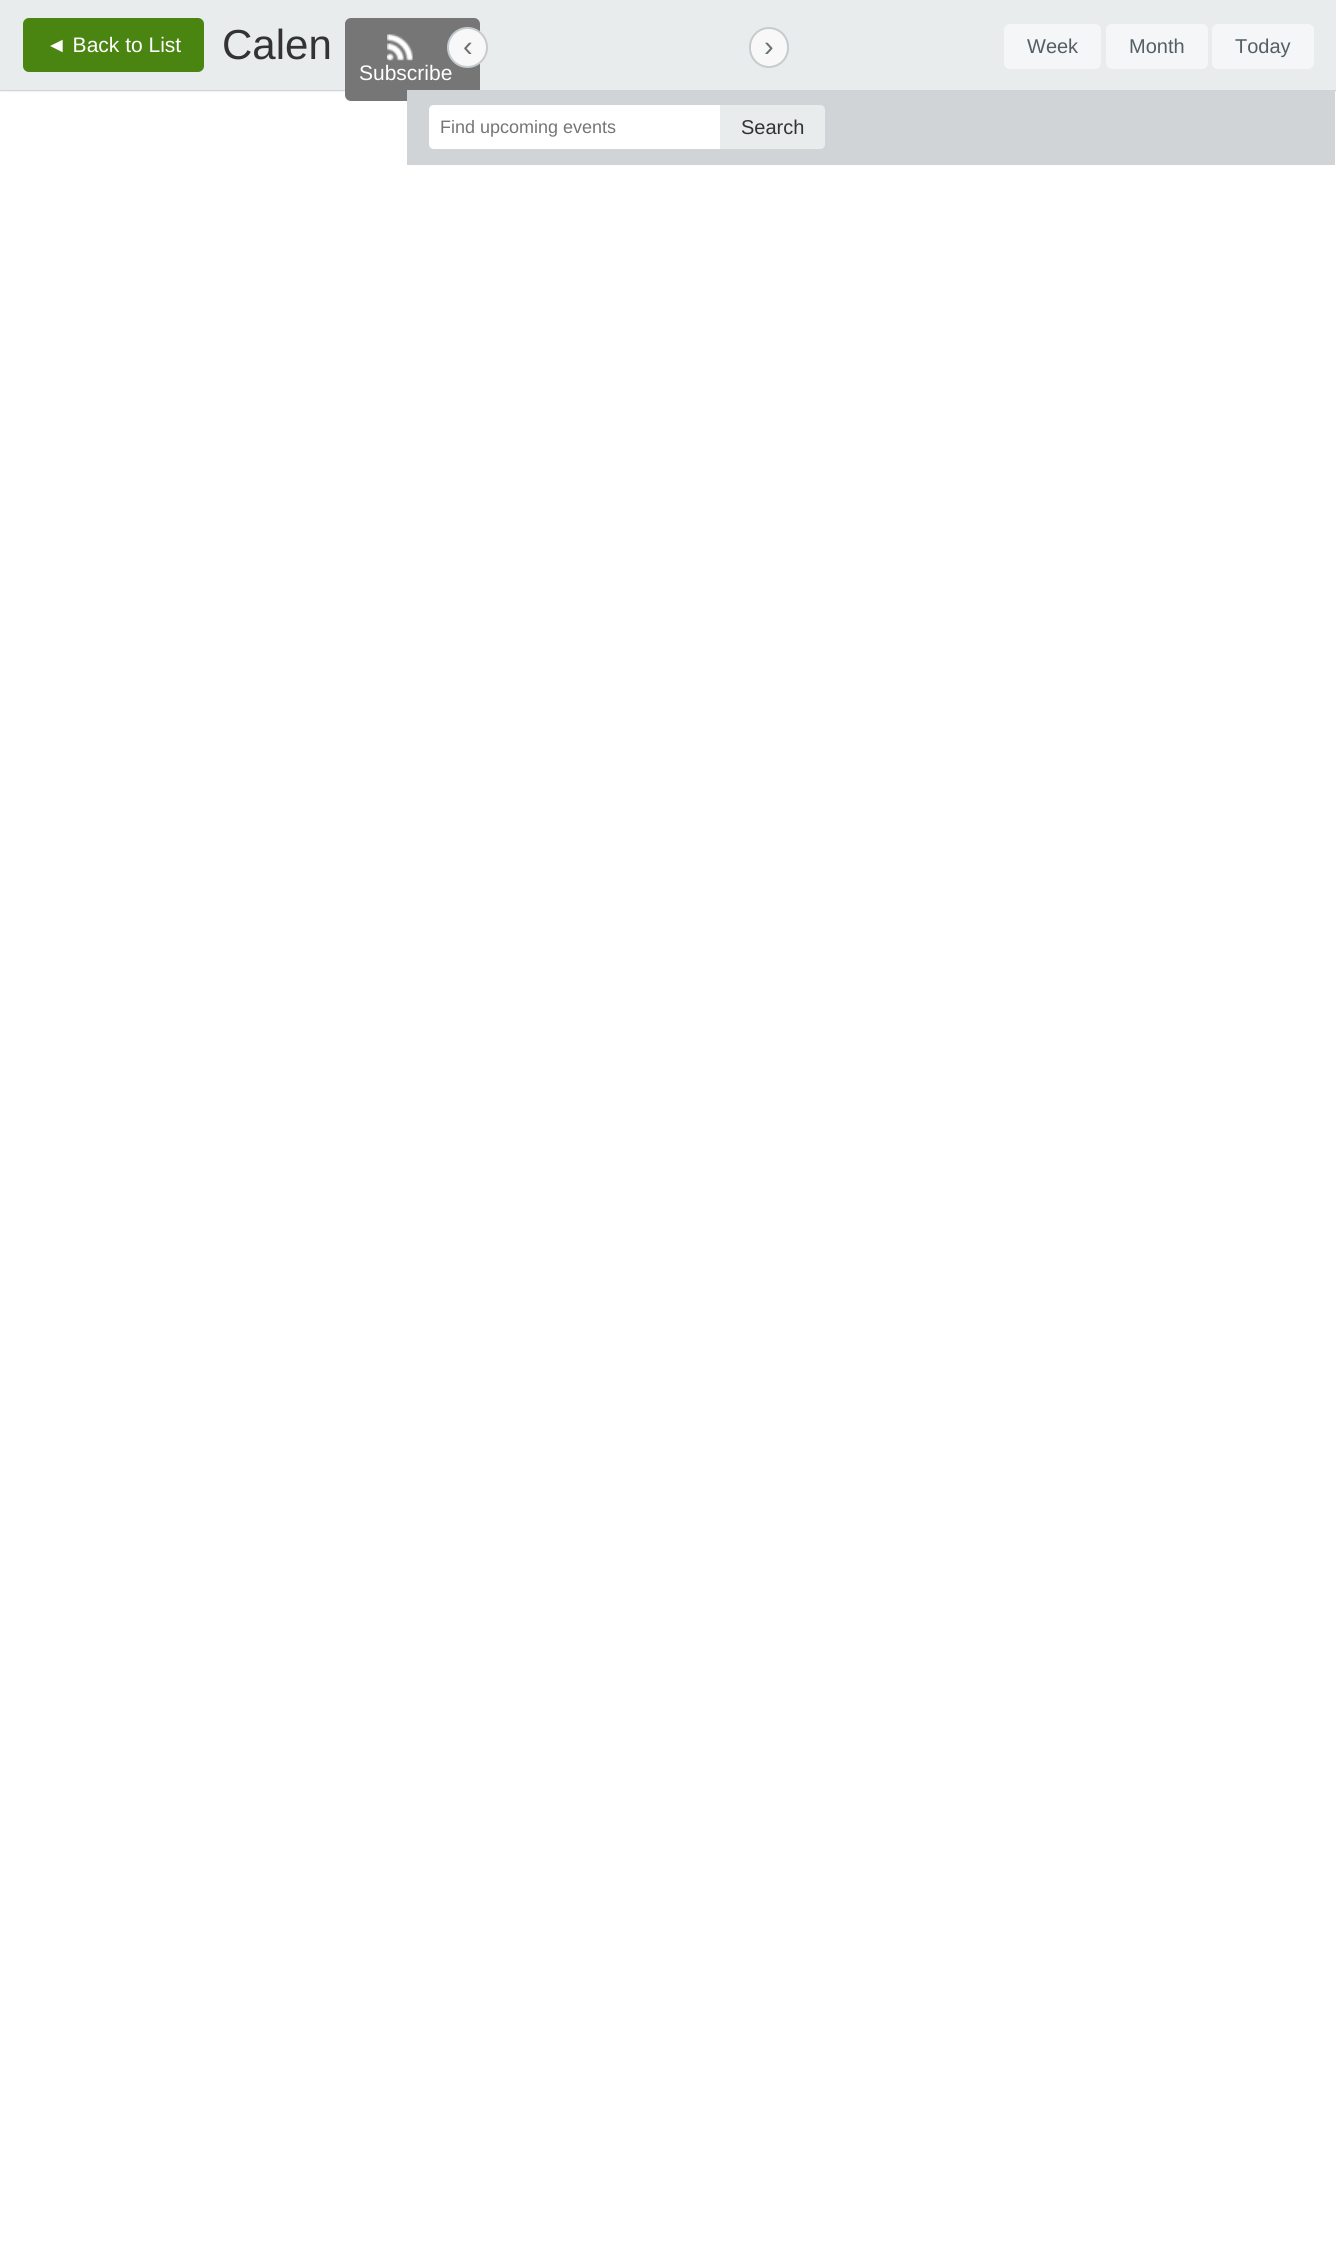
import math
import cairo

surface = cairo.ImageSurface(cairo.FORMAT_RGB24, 1336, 2254)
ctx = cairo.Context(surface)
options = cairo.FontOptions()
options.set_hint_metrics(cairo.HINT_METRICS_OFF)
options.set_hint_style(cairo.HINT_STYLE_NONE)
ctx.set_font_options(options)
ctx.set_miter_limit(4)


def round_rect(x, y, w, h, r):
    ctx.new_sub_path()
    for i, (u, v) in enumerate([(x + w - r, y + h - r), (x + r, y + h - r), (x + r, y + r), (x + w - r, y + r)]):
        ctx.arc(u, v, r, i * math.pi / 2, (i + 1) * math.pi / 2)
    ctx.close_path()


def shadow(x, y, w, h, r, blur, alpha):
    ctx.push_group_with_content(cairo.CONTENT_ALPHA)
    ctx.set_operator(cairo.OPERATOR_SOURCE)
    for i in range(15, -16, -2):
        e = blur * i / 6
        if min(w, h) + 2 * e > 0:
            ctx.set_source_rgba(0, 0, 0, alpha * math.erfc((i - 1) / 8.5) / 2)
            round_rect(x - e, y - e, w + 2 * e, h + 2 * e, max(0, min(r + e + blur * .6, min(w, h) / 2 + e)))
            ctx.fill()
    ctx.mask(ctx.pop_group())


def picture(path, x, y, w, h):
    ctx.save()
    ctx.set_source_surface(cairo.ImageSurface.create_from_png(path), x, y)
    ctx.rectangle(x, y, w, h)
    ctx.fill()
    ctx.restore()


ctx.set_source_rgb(1, 1, 1)
ctx.paint()
ctx.set_source_rgb(0.459, 0.506, 0.557)
shadow(0, 0, 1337, 90, 0, 1, 1)
ctx.set_source_rgb(0.914, 0.922, 0.925)
ctx.rectangle(0, 0, 1336, 90)
ctx.fill()
ctx.set_source_rgb(0.29, 0.518, 0.067)
round_rect(23, 18, 181, 54, 6)
ctx.fill()
ctx.select_font_face("Liberation Sans")
ctx.set_font_size(21)
ctx.set_source_rgb(1, 1, 1)
ctx.move_to(46, 52)
ctx.show_text("◄ Back to List")
ctx.set_font_size(42)
ctx.set_source_rgb(0.2, 0.2, 0.2)
ctx.move_to(222, 59)
ctx.show_text("Calen")
ctx.set_source_rgb(0.463, 0.463, 0.463)
round_rect(345, 18, 135, 83, 6)
ctx.fill()
picture("img1.png", 387, 34, 26, 27)
ctx.set_font_size(21)
ctx.set_source_rgb(1, 1, 1)
ctx.move_to(359, 80)
ctx.show_text("Subscribe")
ctx.set_source_rgb(0.969, 0.969, 0.973)
ctx.new_path()
ctx.arc(467.5, 47.5, 19.5, 0, 2 * math.pi)
ctx.fill_preserve()
ctx.set_source_rgb(0.773, 0.796, 0.808)
ctx.stroke()
ctx.set_font_size(29)
ctx.set_source_rgb(0.427, 0.443, 0.447)
ctx.move_to(463, 56)
ctx.show_text("‹")
ctx.set_source_rgb(0.969, 0.969, 0.973)
round_rect(750, 28, 38, 39, 19)
ctx.fill_preserve()
ctx.set_source_rgb(0.773, 0.796, 0.808)
ctx.stroke()
ctx.set_source_rgb(0.427, 0.443, 0.447)
ctx.move_to(764, 56)
ctx.show_text("›")
ctx.set_source_rgb(0.957, 0.961, 0.965)
round_rect(1004, 24, 97, 45, 6)
ctx.fill()
ctx.set_font_size(20)
ctx.set_source_rgb(0.329, 0.373, 0.396)
ctx.move_to(1027, 53)
ctx.show_text("Week")
ctx.set_source_rgb(0.957, 0.961, 0.965)
round_rect(1106, 24, 102, 45, 6)
ctx.fill()
ctx.set_source_rgb(0.329, 0.373, 0.396)
ctx.move_to(1129, 53)
ctx.show_text("Month")
ctx.set_source_rgb(0.957, 0.961, 0.965)
round_rect(1212, 24, 102, 45, 6)
ctx.fill()
ctx.set_source_rgb(0.329, 0.373, 0.396)
ctx.move_to(1235, 53)
ctx.show_text("Today")
ctx.set_source_rgb(0.82, 0.831, 0.839)
ctx.rectangle(407, 90, 928, 75)
ctx.fill()
ctx.set_source_rgb(1, 1, 1)
ctx.new_path()
ctx.move_to(434, 105)
ctx.line_to(720, 105)
ctx.line_to(720, 149)
ctx.line_to(434, 149)
ctx.curve_to(431, 149, 429, 147, 429, 144)
ctx.line_to(429, 110)
ctx.curve_to(429, 107, 431, 105, 434, 105)
ctx.close_path()
ctx.fill()
ctx.set_font_size(18)
ctx.set_source_rgb(0.459, 0.459, 0.459)
ctx.move_to(440, 133)
ctx.show_text("Find upcoming events")
ctx.set_source_rgb(0.914, 0.922, 0.925)
ctx.new_path()
ctx.move_to(720, 105)
ctx.line_to(820, 105)
ctx.curve_to(823, 105, 825, 107, 825, 110)
ctx.line_to(825, 144)
ctx.curve_to(825, 147, 823, 149, 820, 149)
ctx.line_to(720, 149)
ctx.close_path()
ctx.fill()
ctx.set_font_size(20)
ctx.set_source_rgb(0.2, 0.2, 0.2)
ctx.move_to(741, 134)
ctx.show_text("Search")
surface.write_to_png("page.png")
